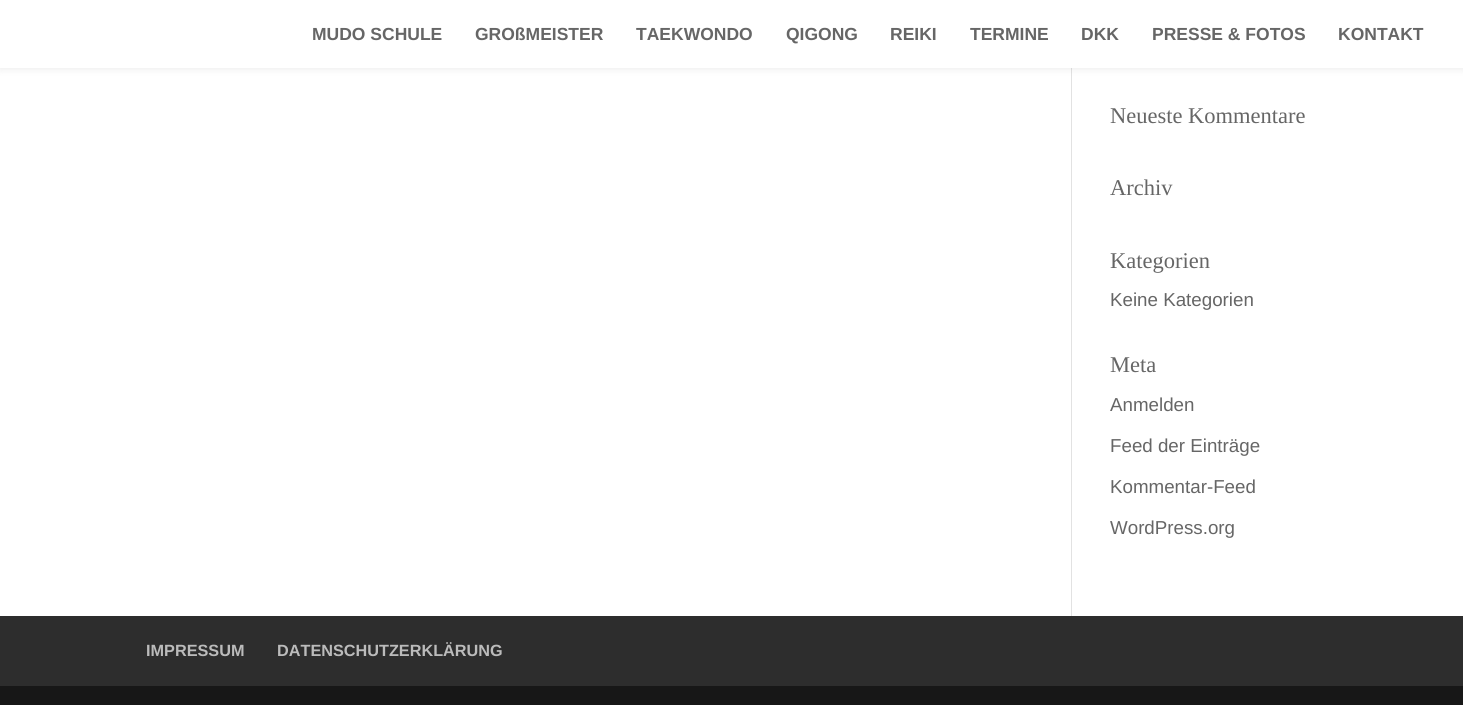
import math
import cairo

surface = cairo.ImageSurface(cairo.FORMAT_RGB24, 1463, 705)
ctx = cairo.Context(surface)
options = cairo.FontOptions()
options.set_hint_metrics(cairo.HINT_METRICS_OFF)
options.set_hint_style(cairo.HINT_STYLE_NONE)
ctx.set_font_options(options)
ctx.set_miter_limit(4)


def round_rect(x, y, w, h, r):
    ctx.new_sub_path()
    for i, (u, v) in enumerate([(x + w - r, y + h - r), (x + r, y + h - r), (x + r, y + r), (x + w - r, y + r)]):
        ctx.arc(u, v, r, i * math.pi / 2, (i + 1) * math.pi / 2)
    ctx.close_path()


def shadow(x, y, w, h, r, blur, alpha):
    ctx.push_group_with_content(cairo.CONTENT_ALPHA)
    ctx.set_operator(cairo.OPERATOR_SOURCE)
    for i in range(15, -16, -2):
        e = blur * i / 6
        if min(w, h) + 2 * e > 0:
            ctx.set_source_rgba(0, 0, 0, alpha * math.erfc((i - 1) / 8.5) / 2)
            round_rect(x - e, y - e, w + 2 * e, h + 2 * e, max(0, min(r + e + blur * .6, min(w, h) / 2 + e)))
            ctx.fill()
    ctx.mask(ctx.pop_group())


ctx.set_source_rgb(1, 1, 1)
ctx.paint()
ctx.set_source_rgb(0.886, 0.886, 0.886)
ctx.rectangle(1071, 68, 1, 548)
ctx.fill()
ctx.set_source_rgb(0, 0, 0)
shadow(0, 0, 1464, 68, 0, 4.5, 0.1)
ctx.set_source_rgb(1, 1, 1)
ctx.rectangle(0, 0, 1463, 68)
ctx.fill()
ctx.select_font_face("Liberation Sans", cairo.FONT_SLANT_NORMAL, cairo.FONT_WEIGHT_BOLD)
ctx.set_font_size(17.5)
ctx.set_source_rgb(0.4, 0.4, 0.4)
ctx.move_to(312, 40)
ctx.show_text("MUDO SCHULE")
ctx.move_to(475, 40)
ctx.show_text("GROßMEISTER")
ctx.move_to(636, 40)
ctx.show_text("TAEKWONDO")
ctx.move_to(786, 40)
ctx.show_text("QIGONG")
ctx.move_to(890, 40)
ctx.show_text("REIKI")
ctx.move_to(970, 40)
ctx.show_text("TERMINE")
ctx.move_to(1081, 40)
ctx.show_text("DKK")
ctx.move_to(1152, 40)
ctx.show_text("PRESSE & FOTOS")
ctx.move_to(1338, 40)
ctx.show_text("KONTAKT")
ctx.select_font_face("Liberation Serif")
ctx.set_font_size(22.5)
ctx.move_to(1110, 123)
ctx.show_text("Neueste Kommentare")
ctx.move_to(1110, 195)
ctx.show_text("Archiv")
ctx.move_to(1110, 268)
ctx.show_text("Kategorien")
ctx.select_font_face("Liberation Sans")
ctx.set_font_size(18.75)
ctx.move_to(1110, 306)
ctx.show_text("Keine Kategorien")
ctx.select_font_face("Liberation Serif")
ctx.set_font_size(22.5)
ctx.move_to(1110, 372)
ctx.show_text("Meta")
ctx.select_font_face("Liberation Sans")
ctx.set_font_size(18.75)
ctx.move_to(1110, 411)
ctx.show_text("Anmelden")
ctx.move_to(1110, 452)
ctx.show_text("Feed der Einträge")
ctx.move_to(1110, 493)
ctx.show_text("Kommentar-Feed")
ctx.move_to(1110, 534)
ctx.show_text("WordPress.org")
ctx.set_source_rgb(0.176, 0.176, 0.176)
ctx.rectangle(0, 616, 1463, 70)
ctx.fill()
ctx.select_font_face("Liberation Sans", cairo.FONT_SLANT_NORMAL, cairo.FONT_WEIGHT_BOLD)
ctx.set_font_size(16.25)
ctx.set_source_rgb(0.733, 0.733, 0.733)
ctx.move_to(146, 656)
ctx.show_text("IMPRESSUM")
ctx.move_to(277, 656)
ctx.show_text("DATENSCHUTZERKLÄRUNG")
ctx.set_source_rgb(0.09, 0.09, 0.09)
ctx.rectangle(0, 686, 1463, 19)
ctx.fill()
surface.write_to_png("page.png")
